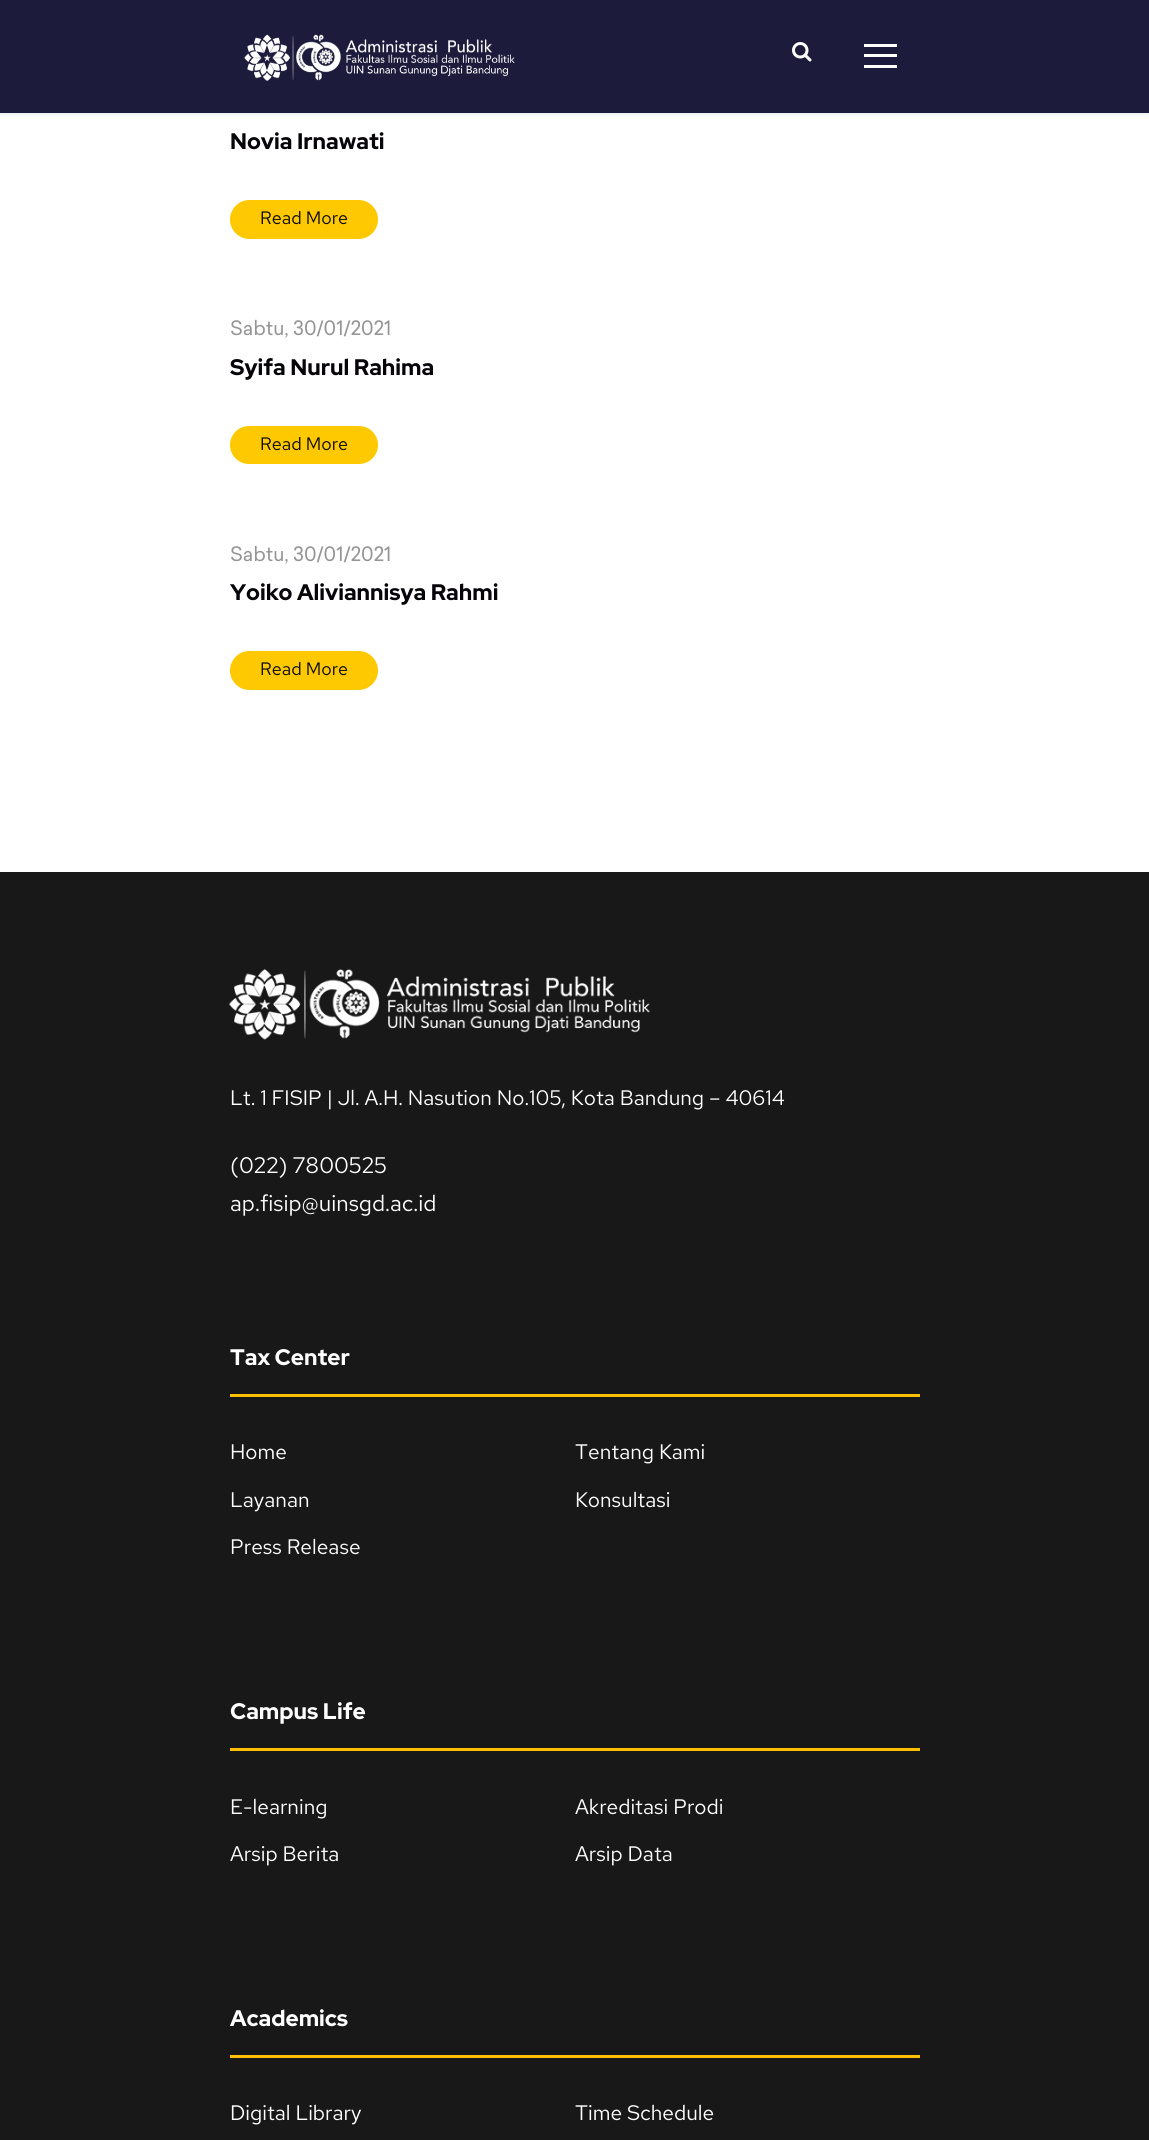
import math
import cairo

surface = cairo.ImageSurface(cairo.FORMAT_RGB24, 1149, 2140)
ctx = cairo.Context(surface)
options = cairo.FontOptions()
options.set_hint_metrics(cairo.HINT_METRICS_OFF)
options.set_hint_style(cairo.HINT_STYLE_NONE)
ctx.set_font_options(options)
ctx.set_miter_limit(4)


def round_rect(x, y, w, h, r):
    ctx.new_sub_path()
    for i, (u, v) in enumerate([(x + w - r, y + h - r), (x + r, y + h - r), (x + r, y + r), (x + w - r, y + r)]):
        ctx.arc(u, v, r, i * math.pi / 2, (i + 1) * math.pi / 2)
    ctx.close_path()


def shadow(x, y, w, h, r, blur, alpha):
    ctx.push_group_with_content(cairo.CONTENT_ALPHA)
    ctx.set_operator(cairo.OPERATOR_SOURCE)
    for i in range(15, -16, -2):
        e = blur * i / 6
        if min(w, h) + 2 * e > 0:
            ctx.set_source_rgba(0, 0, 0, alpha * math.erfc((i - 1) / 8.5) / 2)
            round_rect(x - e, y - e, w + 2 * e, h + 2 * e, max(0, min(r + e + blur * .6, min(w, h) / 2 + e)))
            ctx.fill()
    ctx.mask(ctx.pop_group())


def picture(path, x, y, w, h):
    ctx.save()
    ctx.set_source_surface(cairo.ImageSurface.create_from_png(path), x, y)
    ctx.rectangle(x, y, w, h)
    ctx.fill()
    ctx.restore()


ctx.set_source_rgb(1, 1, 1)
ctx.paint()
ctx.set_source_rgb(0, 0, 0)
shadow(0, 2, 1149, 112, 0, 3, 0.1)
ctx.set_source_rgb(0.11, 0.106, 0.231)
ctx.rectangle(0, 0, 1149, 113)
ctx.fill()
picture("img1.png", 244, 34, 271, 47)
picture("img2.png", 792, 42, 20, 20)
ctx.set_source_rgb(1, 1, 1)
ctx.rectangle(864, 44, 33, 3)
ctx.fill()
ctx.rectangle(864, 54, 33, 3)
ctx.fill()
ctx.rectangle(864, 65, 33, 3)
ctx.fill()
ctx.select_font_face("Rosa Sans", cairo.FONT_SLANT_NORMAL, cairo.FONT_WEIGHT_BOLD)
ctx.set_font_size(22.5)
ctx.set_source_rgb(0.024, 0.016, 0.039)
ctx.move_to(230, 149)
ctx.show_text("Novia Irnawati")
ctx.set_source_rgb(1, 0.788, 0.008)
round_rect(230, 200, 148, 39, 19.5)
ctx.fill()
ctx.select_font_face("Rosa Sans Light")
ctx.set_font_size(18)
ctx.set_source_rgb(0.039, 0.039, 0.039)
ctx.move_to(260, 224)
ctx.show_text("Read More")
ctx.select_font_face("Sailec")
ctx.set_font_size(19.5)
ctx.set_source_rgb(0.584, 0.584, 0.584)
ctx.move_to(230, 335)
ctx.show_text("Sabtu, 30/01/2021")
ctx.select_font_face("Rosa Sans", cairo.FONT_SLANT_NORMAL, cairo.FONT_WEIGHT_BOLD)
ctx.set_font_size(22.5)
ctx.set_source_rgb(0.024, 0.016, 0.039)
ctx.move_to(230, 375)
ctx.show_text("Syifa Nurul Rahima")
ctx.set_source_rgb(1, 0.788, 0.008)
round_rect(230, 426, 148, 38, 19)
ctx.fill()
ctx.select_font_face("Rosa Sans Light")
ctx.set_font_size(18)
ctx.set_source_rgb(0.039, 0.039, 0.039)
ctx.move_to(260, 450)
ctx.show_text("Read More")
ctx.select_font_face("Sailec")
ctx.set_font_size(19.5)
ctx.set_source_rgb(0.584, 0.584, 0.584)
ctx.move_to(230, 561)
ctx.show_text("Sabtu, 30/01/2021")
ctx.select_font_face("Rosa Sans", cairo.FONT_SLANT_NORMAL, cairo.FONT_WEIGHT_BOLD)
ctx.set_font_size(22.5)
ctx.set_source_rgb(0.024, 0.016, 0.039)
ctx.move_to(230, 600)
ctx.show_text("Yoiko Aliviannisya Rahmi")
ctx.set_source_rgb(1, 0.788, 0.008)
round_rect(230, 651, 148, 39, 19.5)
ctx.fill()
ctx.select_font_face("Rosa Sans Light")
ctx.set_font_size(18)
ctx.set_source_rgb(0.039, 0.039, 0.039)
ctx.move_to(260, 675)
ctx.show_text("Read More")
ctx.set_source_rgb(0.094, 0.094, 0.094)
ctx.rectangle(0, 872, 1149, 1268)
ctx.fill()
picture("img3.png", 229, 969, 421, 71)
ctx.set_font_size(21)
ctx.set_source_rgb(1, 1, 1)
ctx.move_to(230, 1105)
ctx.show_text("Lt. 1 FISIP | Jl. A.H. Nasution No.105, Kota Bandung – 40614")
ctx.set_font_size(22.5)
ctx.move_to(230, 1173)
ctx.show_text("(022) 7800525")
ctx.move_to(230, 1211)
ctx.show_text("ap.fisip@uinsgd.ac.id")
ctx.set_source_rgb(0.992, 0.753, 0)
ctx.rectangle(230, 1394, 690, 3)
ctx.fill()
ctx.select_font_face("Rosa Sans", cairo.FONT_SLANT_NORMAL, cairo.FONT_WEIGHT_BOLD)
ctx.set_source_rgb(1, 1, 1)
ctx.move_to(230, 1365)
ctx.show_text("Tax Center")
ctx.select_font_face("Rosa Sans Light")
ctx.set_font_size(21)
ctx.move_to(230, 1459)
ctx.show_text("Home")
ctx.move_to(575, 1459)
ctx.show_text("Tentang Kami")
ctx.move_to(230, 1507)
ctx.show_text("Layanan")
ctx.move_to(575, 1507)
ctx.show_text("Konsultasi")
ctx.move_to(230, 1554)
ctx.show_text("Press Release")
ctx.set_source_rgb(0.992, 0.753, 0)
ctx.rectangle(230, 1748, 690, 3)
ctx.fill()
ctx.select_font_face("Rosa Sans", cairo.FONT_SLANT_NORMAL, cairo.FONT_WEIGHT_BOLD)
ctx.set_font_size(22.5)
ctx.set_source_rgb(1, 1, 1)
ctx.move_to(230, 1719)
ctx.show_text("Campus Life")
ctx.select_font_face("Rosa Sans Light")
ctx.set_font_size(21)
ctx.move_to(230, 1814)
ctx.show_text("E-learning")
ctx.move_to(575, 1814)
ctx.show_text("Akreditasi Prodi")
ctx.move_to(230, 1861)
ctx.show_text("Arsip Berita")
ctx.move_to(575, 1861)
ctx.show_text("Arsip Data")
ctx.set_source_rgb(0.992, 0.753, 0)
ctx.rectangle(230, 2055, 690, 3)
ctx.fill()
ctx.select_font_face("Rosa Sans", cairo.FONT_SLANT_NORMAL, cairo.FONT_WEIGHT_BOLD)
ctx.set_font_size(22.5)
ctx.set_source_rgb(1, 1, 1)
ctx.move_to(230, 2026)
ctx.show_text("Academics")
ctx.select_font_face("Rosa Sans Light")
ctx.set_font_size(21)
ctx.move_to(230, 2120)
ctx.show_text("Digital Library")
ctx.move_to(575, 2120)
ctx.show_text("Time Schedule")
surface.write_to_png("page.png")
